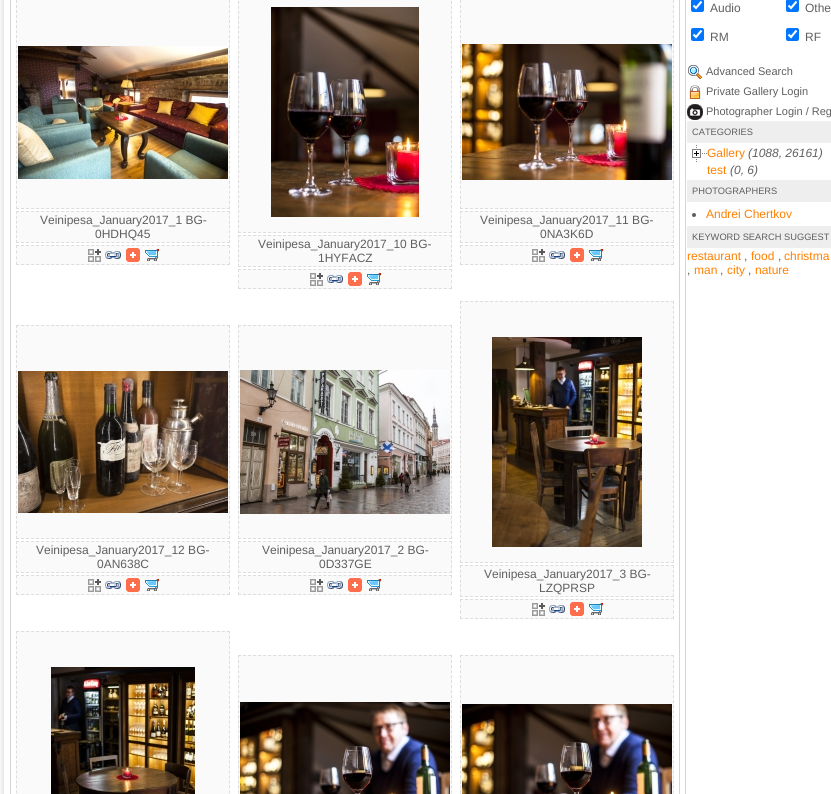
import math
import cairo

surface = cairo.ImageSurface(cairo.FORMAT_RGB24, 831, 794)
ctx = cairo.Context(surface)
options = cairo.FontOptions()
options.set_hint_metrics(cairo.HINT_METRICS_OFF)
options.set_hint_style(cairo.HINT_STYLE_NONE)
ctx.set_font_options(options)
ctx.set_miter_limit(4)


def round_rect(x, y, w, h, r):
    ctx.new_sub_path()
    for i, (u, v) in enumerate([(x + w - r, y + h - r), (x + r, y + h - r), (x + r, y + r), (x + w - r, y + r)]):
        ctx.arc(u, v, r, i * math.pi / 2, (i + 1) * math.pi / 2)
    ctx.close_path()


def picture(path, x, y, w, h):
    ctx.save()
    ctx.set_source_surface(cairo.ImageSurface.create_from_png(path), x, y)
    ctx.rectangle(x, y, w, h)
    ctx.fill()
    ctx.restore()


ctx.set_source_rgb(1, 1, 1)
ctx.paint()
picture("img1.png", 0, 0, 4, 794)
ctx.rectangle(685.5, -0.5, 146, 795)
ctx.set_source_rgb(0.835, 0.835, 0.835)
ctx.set_line_width(1)
ctx.stroke()
ctx.set_source_rgb(0, 0.459, 1)
round_rect(691, -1, 13, 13, 2)
ctx.fill()
ctx.new_path()
ctx.move_to(693.5, 5.5)
ctx.line_to(696, 8)
ctx.line_to(701.5, 1.5)
ctx.set_source_rgb(1, 1, 1)
ctx.set_line_width(2.1)
ctx.stroke()
ctx.select_font_face("Liberation Sans")
ctx.set_font_size(12)
ctx.set_source_rgb(0.373, 0.373, 0.373)
ctx.move_to(710, 12)
ctx.show_text("Audio")
ctx.set_source_rgb(0, 0.459, 1)
round_rect(786, -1, 13, 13, 2)
ctx.fill()
ctx.new_path()
ctx.move_to(788.5, 5.5)
ctx.line_to(791, 8)
ctx.line_to(796.5, 1.5)
ctx.set_source_rgb(1, 1, 1)
ctx.stroke()
ctx.set_source_rgb(0.373, 0.373, 0.373)
ctx.move_to(805, 12)
ctx.show_text("Othe")
ctx.set_source_rgb(0, 0.459, 1)
round_rect(691, 28, 13, 13, 2)
ctx.fill()
ctx.new_path()
ctx.move_to(693.5, 34.5)
ctx.line_to(696, 37)
ctx.line_to(701.5, 30.5)
ctx.set_source_rgb(1, 1, 1)
ctx.stroke()
ctx.set_source_rgb(0.373, 0.373, 0.373)
ctx.move_to(710, 41)
ctx.show_text("RM")
ctx.set_source_rgb(0, 0.459, 1)
round_rect(786, 28, 13, 13, 2)
ctx.fill()
ctx.new_path()
ctx.move_to(788.5, 34.5)
ctx.line_to(791, 37)
ctx.line_to(796.5, 30.5)
ctx.set_source_rgb(1, 1, 1)
ctx.stroke()
ctx.set_source_rgb(0.373, 0.373, 0.373)
ctx.move_to(805, 41)
ctx.show_text("RF")
picture("img2.png", 688, 65, 14, 14)
ctx.set_font_size(11)
ctx.move_to(706, 75)
ctx.show_text("Advanced Search")
picture("img3.png", 689, 85, 12, 14)
ctx.move_to(706, 95)
ctx.show_text("Private Gallery Login")
picture("img4.png", 687, 104, 16, 16)
ctx.move_to(706, 115)
ctx.show_text("Photographer Login / Reg")
ctx.set_source_rgb(0.933, 0.933, 0.933)
ctx.rectangle(687, 121, 144, 22)
ctx.fill()
ctx.set_font_size(9.3)
ctx.set_source_rgb(0.373, 0.373, 0.373)
ctx.move_to(692, 135)
ctx.show_text("CATEGORIES")
picture("img5.png", 696, 145, 1, 15)
picture("img6.png", 692, 149, 15, 9)
ctx.set_font_size(12)
ctx.set_source_rgb(1, 0.502, 0)
ctx.move_to(707, 157)
ctx.show_text("Gallery")
ctx.select_font_face("Liberation Sans", cairo.FONT_SLANT_ITALIC)
ctx.set_source_rgb(0.373, 0.373, 0.373)
ctx.move_to(748, 157)
ctx.show_text("(1088, 26161)")
ctx.set_source_rgb(0.502, 0.502, 0.502)
ctx.rectangle(696, 161, 1, 1)
ctx.fill()
ctx.select_font_face("Liberation Sans")
ctx.set_source_rgb(1, 0.502, 0)
ctx.move_to(707, 174)
ctx.show_text("test")
ctx.select_font_face("Liberation Sans", cairo.FONT_SLANT_ITALIC)
ctx.set_source_rgb(0.373, 0.373, 0.373)
ctx.move_to(730, 174)
ctx.show_text("(0, 6)")
ctx.set_source_rgb(0.933, 0.933, 0.933)
ctx.rectangle(687, 180, 144, 22)
ctx.fill()
ctx.select_font_face("Liberation Sans")
ctx.set_font_size(9.3)
ctx.set_source_rgb(0.373, 0.373, 0.373)
ctx.move_to(692, 194)
ctx.show_text("PHOTOGRAPHERS")
ctx.new_path()
ctx.arc(694, 215, 2, 0, 2 * math.pi)
ctx.fill()
ctx.set_font_size(12)
ctx.set_source_rgb(1, 0.502, 0)
ctx.move_to(706, 218)
ctx.show_text("Andrei Chertkov")
ctx.set_source_rgb(0.933, 0.933, 0.933)
ctx.rectangle(687, 226, 144, 22)
ctx.fill()
ctx.set_font_size(9.3)
ctx.set_source_rgb(0.373, 0.373, 0.373)
ctx.move_to(692, 240)
ctx.show_text("KEYWORD SEARCH SUGGEST")
ctx.set_font_size(12)
ctx.set_source_rgb(1, 0.502, 0)
ctx.move_to(687, 260)
ctx.show_text("restaurant")
ctx.set_source_rgb(0.373, 0.373, 0.373)
ctx.move_to(744, 260)
ctx.show_text(",")
ctx.set_source_rgb(1, 0.502, 0)
ctx.move_to(751, 260)
ctx.show_text("food")
ctx.set_source_rgb(0.373, 0.373, 0.373)
ctx.move_to(778, 260)
ctx.show_text(",")
ctx.set_source_rgb(1, 0.502, 0)
ctx.move_to(784, 260)
ctx.show_text("christma")
ctx.set_source_rgb(0.373, 0.373, 0.373)
ctx.move_to(687, 274)
ctx.show_text(",")
ctx.set_source_rgb(1, 0.502, 0)
ctx.move_to(694, 274)
ctx.show_text("man")
ctx.set_source_rgb(0.373, 0.373, 0.373)
ctx.move_to(720, 274)
ctx.show_text(",")
ctx.set_source_rgb(1, 0.502, 0)
ctx.move_to(727, 274)
ctx.show_text("city")
ctx.set_source_rgb(0.373, 0.373, 0.373)
ctx.move_to(748, 274)
ctx.show_text(",")
ctx.set_source_rgb(1, 0.502, 0)
ctx.move_to(755, 274)
ctx.show_text("nature")
ctx.rectangle(10.5, -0.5, 669, 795)
ctx.set_source_rgb(0.835, 0.835, 0.835)
ctx.set_line_width(1)
ctx.stroke()
ctx.set_source_rgb(0.98, 0.98, 0.98)
ctx.rectangle(16, 0, 214, 209)
ctx.fill()
ctx.new_path()
ctx.move_to(229.5, -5)
ctx.line_to(229.5, 209)
ctx.set_source_rgb(0.867, 0.867, 0.867)
ctx.set_dash([3, 2.02])
ctx.stroke()
ctx.new_path()
ctx.move_to(16, 208.5)
ctx.line_to(230, 208.5)
ctx.stroke()
ctx.new_path()
ctx.move_to(16.5, -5)
ctx.line_to(16.5, 209)
ctx.stroke()
picture("img7.png", 18, 46, 210, 133)
ctx.set_source_rgb(0.98, 0.98, 0.98)
ctx.rectangle(16, 211, 214, 32)
ctx.fill()
ctx.new_path()
ctx.move_to(16, 211.5)
ctx.line_to(230, 211.5)
ctx.set_source_rgb(0.867, 0.867, 0.867)
ctx.stroke()
ctx.new_path()
ctx.move_to(229.5, 211)
ctx.line_to(229.5, 243)
ctx.set_dash([3, 1.83])
ctx.stroke()
ctx.new_path()
ctx.move_to(16, 242.5)
ctx.line_to(230, 242.5)
ctx.set_dash([3, 2.02])
ctx.stroke()
ctx.new_path()
ctx.move_to(16.5, 211)
ctx.line_to(16.5, 243)
ctx.set_dash([3, 1.83])
ctx.stroke()
ctx.set_source_rgb(0.373, 0.373, 0.373)
ctx.move_to(40, 224)
ctx.show_text("Veinipesa_January2017_1 BG-")
ctx.move_to(95, 238)
ctx.show_text("0HDHQ45")
ctx.set_source_rgb(0.98, 0.98, 0.98)
ctx.rectangle(16, 245, 214, 20)
ctx.fill()
ctx.new_path()
ctx.move_to(16, 245.5)
ctx.line_to(230, 245.5)
ctx.set_source_rgb(0.867, 0.867, 0.867)
ctx.set_dash([3, 2.02])
ctx.stroke()
ctx.new_path()
ctx.move_to(229.5, 245)
ctx.line_to(229.5, 265)
ctx.set_dash([3, 2.67])
ctx.stroke()
ctx.new_path()
ctx.move_to(16, 264.5)
ctx.line_to(230, 264.5)
ctx.set_dash([3, 2.02])
ctx.stroke()
ctx.new_path()
ctx.move_to(16.5, 245)
ctx.line_to(16.5, 265)
ctx.set_dash([3, 2.67])
ctx.stroke()
picture("img8.png", 88, 249, 13, 13)
picture("img9.png", 105, 251, 16, 8)
picture("img10.png", 126, 248, 14, 14)
picture("img11.png", 145, 248, 15, 13)
ctx.set_source_rgb(0.98, 0.98, 0.98)
ctx.rectangle(460, 0, 214, 209)
ctx.fill()
ctx.new_path()
ctx.move_to(673.5, -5)
ctx.line_to(673.5, 209)
ctx.set_source_rgb(0.867, 0.867, 0.867)
ctx.set_dash([3, 2.02])
ctx.stroke()
ctx.new_path()
ctx.move_to(460, 208.5)
ctx.line_to(674, 208.5)
ctx.stroke()
ctx.new_path()
ctx.move_to(460.5, -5)
ctx.line_to(460.5, 209)
ctx.stroke()
picture("img12.png", 462, 44, 210, 136)
ctx.set_source_rgb(0.98, 0.98, 0.98)
ctx.rectangle(460, 211, 214, 32)
ctx.fill()
ctx.new_path()
ctx.move_to(460, 211.5)
ctx.line_to(674, 211.5)
ctx.set_source_rgb(0.867, 0.867, 0.867)
ctx.stroke()
ctx.new_path()
ctx.move_to(673.5, 211)
ctx.line_to(673.5, 243)
ctx.set_dash([3, 1.83])
ctx.stroke()
ctx.new_path()
ctx.move_to(460, 242.5)
ctx.line_to(674, 242.5)
ctx.set_dash([3, 2.02])
ctx.stroke()
ctx.new_path()
ctx.move_to(460.5, 211)
ctx.line_to(460.5, 243)
ctx.set_dash([3, 1.83])
ctx.stroke()
ctx.set_source_rgb(0.373, 0.373, 0.373)
ctx.move_to(480, 224)
ctx.show_text("Veinipesa_January2017_11 BG-")
ctx.move_to(540, 238)
ctx.show_text("0NA3K6D")
ctx.set_source_rgb(0.98, 0.98, 0.98)
ctx.rectangle(460, 245, 214, 20)
ctx.fill()
ctx.new_path()
ctx.move_to(460, 245.5)
ctx.line_to(674, 245.5)
ctx.set_source_rgb(0.867, 0.867, 0.867)
ctx.set_dash([3, 2.02])
ctx.stroke()
ctx.new_path()
ctx.move_to(673.5, 245)
ctx.line_to(673.5, 265)
ctx.set_dash([3, 2.67])
ctx.stroke()
ctx.new_path()
ctx.move_to(460, 264.5)
ctx.line_to(674, 264.5)
ctx.set_dash([3, 2.02])
ctx.stroke()
ctx.new_path()
ctx.move_to(460.5, 245)
ctx.line_to(460.5, 265)
ctx.set_dash([3, 2.67])
ctx.stroke()
picture("img8.png", 532, 249, 13, 13)
picture("img9.png", 549, 251, 16, 8)
picture("img10.png", 570, 248, 14, 14)
picture("img11.png", 589, 248, 15, 13)
ctx.set_source_rgb(0.98, 0.98, 0.98)
ctx.rectangle(238, 0, 214, 233)
ctx.fill()
ctx.new_path()
ctx.move_to(451.5, -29)
ctx.line_to(451.5, 233)
ctx.set_source_rgb(0.867, 0.867, 0.867)
ctx.set_dash([3, 1.98])
ctx.stroke()
ctx.new_path()
ctx.move_to(238, 232.5)
ctx.line_to(452, 232.5)
ctx.set_dash([3, 2.02])
ctx.stroke()
ctx.new_path()
ctx.move_to(238.5, -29)
ctx.line_to(238.5, 233)
ctx.set_dash([3, 1.98])
ctx.stroke()
picture("img13.png", 271, 7, 148, 210)
ctx.set_source_rgb(0.98, 0.98, 0.98)
ctx.rectangle(238, 235, 214, 32)
ctx.fill()
ctx.new_path()
ctx.move_to(238, 235.5)
ctx.line_to(452, 235.5)
ctx.set_source_rgb(0.867, 0.867, 0.867)
ctx.set_dash([3, 2.02])
ctx.stroke()
ctx.new_path()
ctx.move_to(451.5, 235)
ctx.line_to(451.5, 267)
ctx.set_dash([3, 1.83])
ctx.stroke()
ctx.new_path()
ctx.move_to(238, 266.5)
ctx.line_to(452, 266.5)
ctx.set_dash([3, 2.02])
ctx.stroke()
ctx.new_path()
ctx.move_to(238.5, 235)
ctx.line_to(238.5, 267)
ctx.set_dash([3, 1.83])
ctx.stroke()
ctx.set_source_rgb(0.373, 0.373, 0.373)
ctx.move_to(258, 248)
ctx.show_text("Veinipesa_January2017_10 BG-")
ctx.move_to(318, 262)
ctx.show_text("1HYFACZ")
ctx.set_source_rgb(0.98, 0.98, 0.98)
ctx.rectangle(238, 269, 214, 20)
ctx.fill()
ctx.new_path()
ctx.move_to(238, 269.5)
ctx.line_to(452, 269.5)
ctx.set_source_rgb(0.867, 0.867, 0.867)
ctx.set_dash([3, 2.02])
ctx.stroke()
ctx.new_path()
ctx.move_to(451.5, 269)
ctx.line_to(451.5, 289)
ctx.set_dash([3, 2.67])
ctx.stroke()
ctx.new_path()
ctx.move_to(238, 288.5)
ctx.line_to(452, 288.5)
ctx.set_dash([3, 2.02])
ctx.stroke()
ctx.new_path()
ctx.move_to(238.5, 269)
ctx.line_to(238.5, 289)
ctx.set_dash([3, 2.67])
ctx.stroke()
picture("img8.png", 310, 273, 13, 13)
picture("img9.png", 327, 275, 16, 8)
picture("img10.png", 348, 272, 14, 14)
picture("img11.png", 367, 272, 15, 13)
ctx.set_source_rgb(0.98, 0.98, 0.98)
ctx.rectangle(16, 325, 214, 214)
ctx.fill()
ctx.new_path()
ctx.move_to(16, 325.5)
ctx.line_to(230, 325.5)
ctx.set_source_rgb(0.867, 0.867, 0.867)
ctx.set_dash([3, 2.02])
ctx.stroke()
ctx.new_path()
ctx.move_to(229.5, 325)
ctx.line_to(229.5, 539)
ctx.stroke()
ctx.new_path()
ctx.move_to(16, 538.5)
ctx.line_to(230, 538.5)
ctx.stroke()
ctx.new_path()
ctx.move_to(16.5, 325)
ctx.line_to(16.5, 539)
ctx.stroke()
picture("img14.png", 18, 371, 210, 142)
ctx.set_source_rgb(0.98, 0.98, 0.98)
ctx.rectangle(16, 541, 214, 32)
ctx.fill()
ctx.new_path()
ctx.move_to(16, 541.5)
ctx.line_to(230, 541.5)
ctx.set_source_rgb(0.867, 0.867, 0.867)
ctx.stroke()
ctx.new_path()
ctx.move_to(229.5, 541)
ctx.line_to(229.5, 573)
ctx.set_dash([3, 1.83])
ctx.stroke()
ctx.new_path()
ctx.move_to(16, 572.5)
ctx.line_to(230, 572.5)
ctx.set_dash([3, 2.02])
ctx.stroke()
ctx.new_path()
ctx.move_to(16.5, 541)
ctx.line_to(16.5, 573)
ctx.set_dash([3, 1.83])
ctx.stroke()
ctx.set_source_rgb(0.373, 0.373, 0.373)
ctx.move_to(36, 554)
ctx.show_text("Veinipesa_January2017_12 BG-")
ctx.move_to(97, 568)
ctx.show_text("0AN638C")
ctx.set_source_rgb(0.98, 0.98, 0.98)
ctx.rectangle(16, 575, 214, 20)
ctx.fill()
ctx.new_path()
ctx.move_to(16, 575.5)
ctx.line_to(230, 575.5)
ctx.set_source_rgb(0.867, 0.867, 0.867)
ctx.set_dash([3, 2.02])
ctx.stroke()
ctx.new_path()
ctx.move_to(229.5, 575)
ctx.line_to(229.5, 595)
ctx.set_dash([3, 2.67])
ctx.stroke()
ctx.new_path()
ctx.move_to(16, 594.5)
ctx.line_to(230, 594.5)
ctx.set_dash([3, 2.02])
ctx.stroke()
ctx.new_path()
ctx.move_to(16.5, 575)
ctx.line_to(16.5, 595)
ctx.set_dash([3, 2.67])
ctx.stroke()
picture("img8.png", 88, 579, 13, 13)
picture("img9.png", 105, 581, 16, 8)
picture("img10.png", 126, 578, 14, 14)
picture("img11.png", 145, 578, 15, 13)
ctx.set_source_rgb(0.98, 0.98, 0.98)
ctx.rectangle(238, 325, 214, 214)
ctx.fill()
ctx.new_path()
ctx.move_to(238, 325.5)
ctx.line_to(452, 325.5)
ctx.set_source_rgb(0.867, 0.867, 0.867)
ctx.set_dash([3, 2.02])
ctx.stroke()
ctx.new_path()
ctx.move_to(451.5, 325)
ctx.line_to(451.5, 539)
ctx.stroke()
ctx.new_path()
ctx.move_to(238, 538.5)
ctx.line_to(452, 538.5)
ctx.stroke()
ctx.new_path()
ctx.move_to(238.5, 325)
ctx.line_to(238.5, 539)
ctx.stroke()
picture("img15.png", 240, 370, 210, 144)
ctx.set_source_rgb(0.98, 0.98, 0.98)
ctx.rectangle(238, 541, 214, 32)
ctx.fill()
ctx.new_path()
ctx.move_to(238, 541.5)
ctx.line_to(452, 541.5)
ctx.set_source_rgb(0.867, 0.867, 0.867)
ctx.stroke()
ctx.new_path()
ctx.move_to(451.5, 541)
ctx.line_to(451.5, 573)
ctx.set_dash([3, 1.83])
ctx.stroke()
ctx.new_path()
ctx.move_to(238, 572.5)
ctx.line_to(452, 572.5)
ctx.set_dash([3, 2.02])
ctx.stroke()
ctx.new_path()
ctx.move_to(238.5, 541)
ctx.line_to(238.5, 573)
ctx.set_dash([3, 1.83])
ctx.stroke()
ctx.set_source_rgb(0.373, 0.373, 0.373)
ctx.move_to(262, 554)
ctx.show_text("Veinipesa_January2017_2 BG-")
ctx.move_to(319, 568)
ctx.show_text("0D337GE")
ctx.set_source_rgb(0.98, 0.98, 0.98)
ctx.rectangle(238, 575, 214, 20)
ctx.fill()
ctx.new_path()
ctx.move_to(238, 575.5)
ctx.line_to(452, 575.5)
ctx.set_source_rgb(0.867, 0.867, 0.867)
ctx.set_dash([3, 2.02])
ctx.stroke()
ctx.new_path()
ctx.move_to(451.5, 575)
ctx.line_to(451.5, 595)
ctx.set_dash([3, 2.67])
ctx.stroke()
ctx.new_path()
ctx.move_to(238, 594.5)
ctx.line_to(452, 594.5)
ctx.set_dash([3, 2.02])
ctx.stroke()
ctx.new_path()
ctx.move_to(238.5, 575)
ctx.line_to(238.5, 595)
ctx.set_dash([3, 2.67])
ctx.stroke()
picture("img8.png", 310, 579, 13, 13)
picture("img9.png", 327, 581, 16, 8)
picture("img10.png", 348, 578, 14, 14)
picture("img11.png", 367, 578, 15, 13)
ctx.set_source_rgb(0.98, 0.98, 0.98)
ctx.rectangle(460, 301, 214, 262)
ctx.fill()
ctx.new_path()
ctx.move_to(460, 301.5)
ctx.line_to(674, 301.5)
ctx.set_source_rgb(0.867, 0.867, 0.867)
ctx.set_dash([3, 2.02])
ctx.stroke()
ctx.new_path()
ctx.move_to(673.5, 301)
ctx.line_to(673.5, 563)
ctx.set_dash([3, 1.98])
ctx.stroke()
ctx.new_path()
ctx.move_to(460, 562.5)
ctx.line_to(674, 562.5)
ctx.set_dash([3, 2.02])
ctx.stroke()
ctx.new_path()
ctx.move_to(460.5, 301)
ctx.line_to(460.5, 563)
ctx.set_dash([3, 1.98])
ctx.stroke()
picture("img16.png", 492, 337, 150, 210)
ctx.set_source_rgb(0.98, 0.98, 0.98)
ctx.rectangle(460, 565, 214, 32)
ctx.fill()
ctx.new_path()
ctx.move_to(460, 565.5)
ctx.line_to(674, 565.5)
ctx.set_source_rgb(0.867, 0.867, 0.867)
ctx.set_dash([3, 2.02])
ctx.stroke()
ctx.new_path()
ctx.move_to(673.5, 565)
ctx.line_to(673.5, 597)
ctx.set_dash([3, 1.83])
ctx.stroke()
ctx.new_path()
ctx.move_to(460, 596.5)
ctx.line_to(674, 596.5)
ctx.set_dash([3, 2.02])
ctx.stroke()
ctx.new_path()
ctx.move_to(460.5, 565)
ctx.line_to(460.5, 597)
ctx.set_dash([3, 1.83])
ctx.stroke()
ctx.set_source_rgb(0.373, 0.373, 0.373)
ctx.move_to(484, 578)
ctx.show_text("Veinipesa_January2017_3 BG-")
ctx.move_to(539, 592)
ctx.show_text("LZQPRSP")
ctx.set_source_rgb(0.98, 0.98, 0.98)
ctx.rectangle(460, 599, 214, 20)
ctx.fill()
ctx.new_path()
ctx.move_to(460, 599.5)
ctx.line_to(674, 599.5)
ctx.set_source_rgb(0.867, 0.867, 0.867)
ctx.set_dash([3, 2.02])
ctx.stroke()
ctx.new_path()
ctx.move_to(673.5, 599)
ctx.line_to(673.5, 619)
ctx.set_dash([3, 2.67])
ctx.stroke()
ctx.new_path()
ctx.move_to(460, 618.5)
ctx.line_to(674, 618.5)
ctx.set_dash([3, 2.02])
ctx.stroke()
ctx.new_path()
ctx.move_to(460.5, 599)
ctx.line_to(460.5, 619)
ctx.set_dash([3, 2.67])
ctx.stroke()
picture("img8.png", 532, 603, 13, 13)
picture("img9.png", 549, 605, 16, 8)
picture("img10.png", 570, 602, 14, 14)
picture("img11.png", 589, 602, 15, 13)
ctx.set_source_rgb(0.98, 0.98, 0.98)
ctx.rectangle(16, 631, 214, 163)
ctx.fill()
ctx.new_path()
ctx.move_to(16, 631.5)
ctx.line_to(230, 631.5)
ctx.set_source_rgb(0.867, 0.867, 0.867)
ctx.set_dash([3, 2.02])
ctx.stroke()
ctx.new_path()
ctx.move_to(229.5, 631)
ctx.line_to(229.5, 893)
ctx.set_dash([3, 1.98])
ctx.stroke()
ctx.new_path()
ctx.move_to(16.5, 631)
ctx.line_to(16.5, 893)
ctx.stroke()
picture("img17.png", 51, 667, 144, 127)
ctx.set_source_rgb(0.98, 0.98, 0.98)
ctx.rectangle(238, 655, 214, 139)
ctx.fill()
ctx.new_path()
ctx.move_to(238, 655.5)
ctx.line_to(452, 655.5)
ctx.set_source_rgb(0.867, 0.867, 0.867)
ctx.set_dash([3, 2.02])
ctx.stroke()
ctx.new_path()
ctx.move_to(451.5, 655)
ctx.line_to(451.5, 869)
ctx.stroke()
ctx.new_path()
ctx.move_to(238.5, 655)
ctx.line_to(238.5, 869)
ctx.stroke()
picture("img18.png", 240, 702, 210, 92)
ctx.set_source_rgb(0.98, 0.98, 0.98)
ctx.rectangle(460, 655, 214, 139)
ctx.fill()
ctx.new_path()
ctx.move_to(460, 655.5)
ctx.line_to(674, 655.5)
ctx.set_source_rgb(0.867, 0.867, 0.867)
ctx.stroke()
ctx.new_path()
ctx.move_to(673.5, 655)
ctx.line_to(673.5, 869)
ctx.stroke()
ctx.new_path()
ctx.move_to(460.5, 655)
ctx.line_to(460.5, 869)
ctx.stroke()
picture("img19.png", 462, 704, 210, 90)
surface.write_to_png("page.png")
